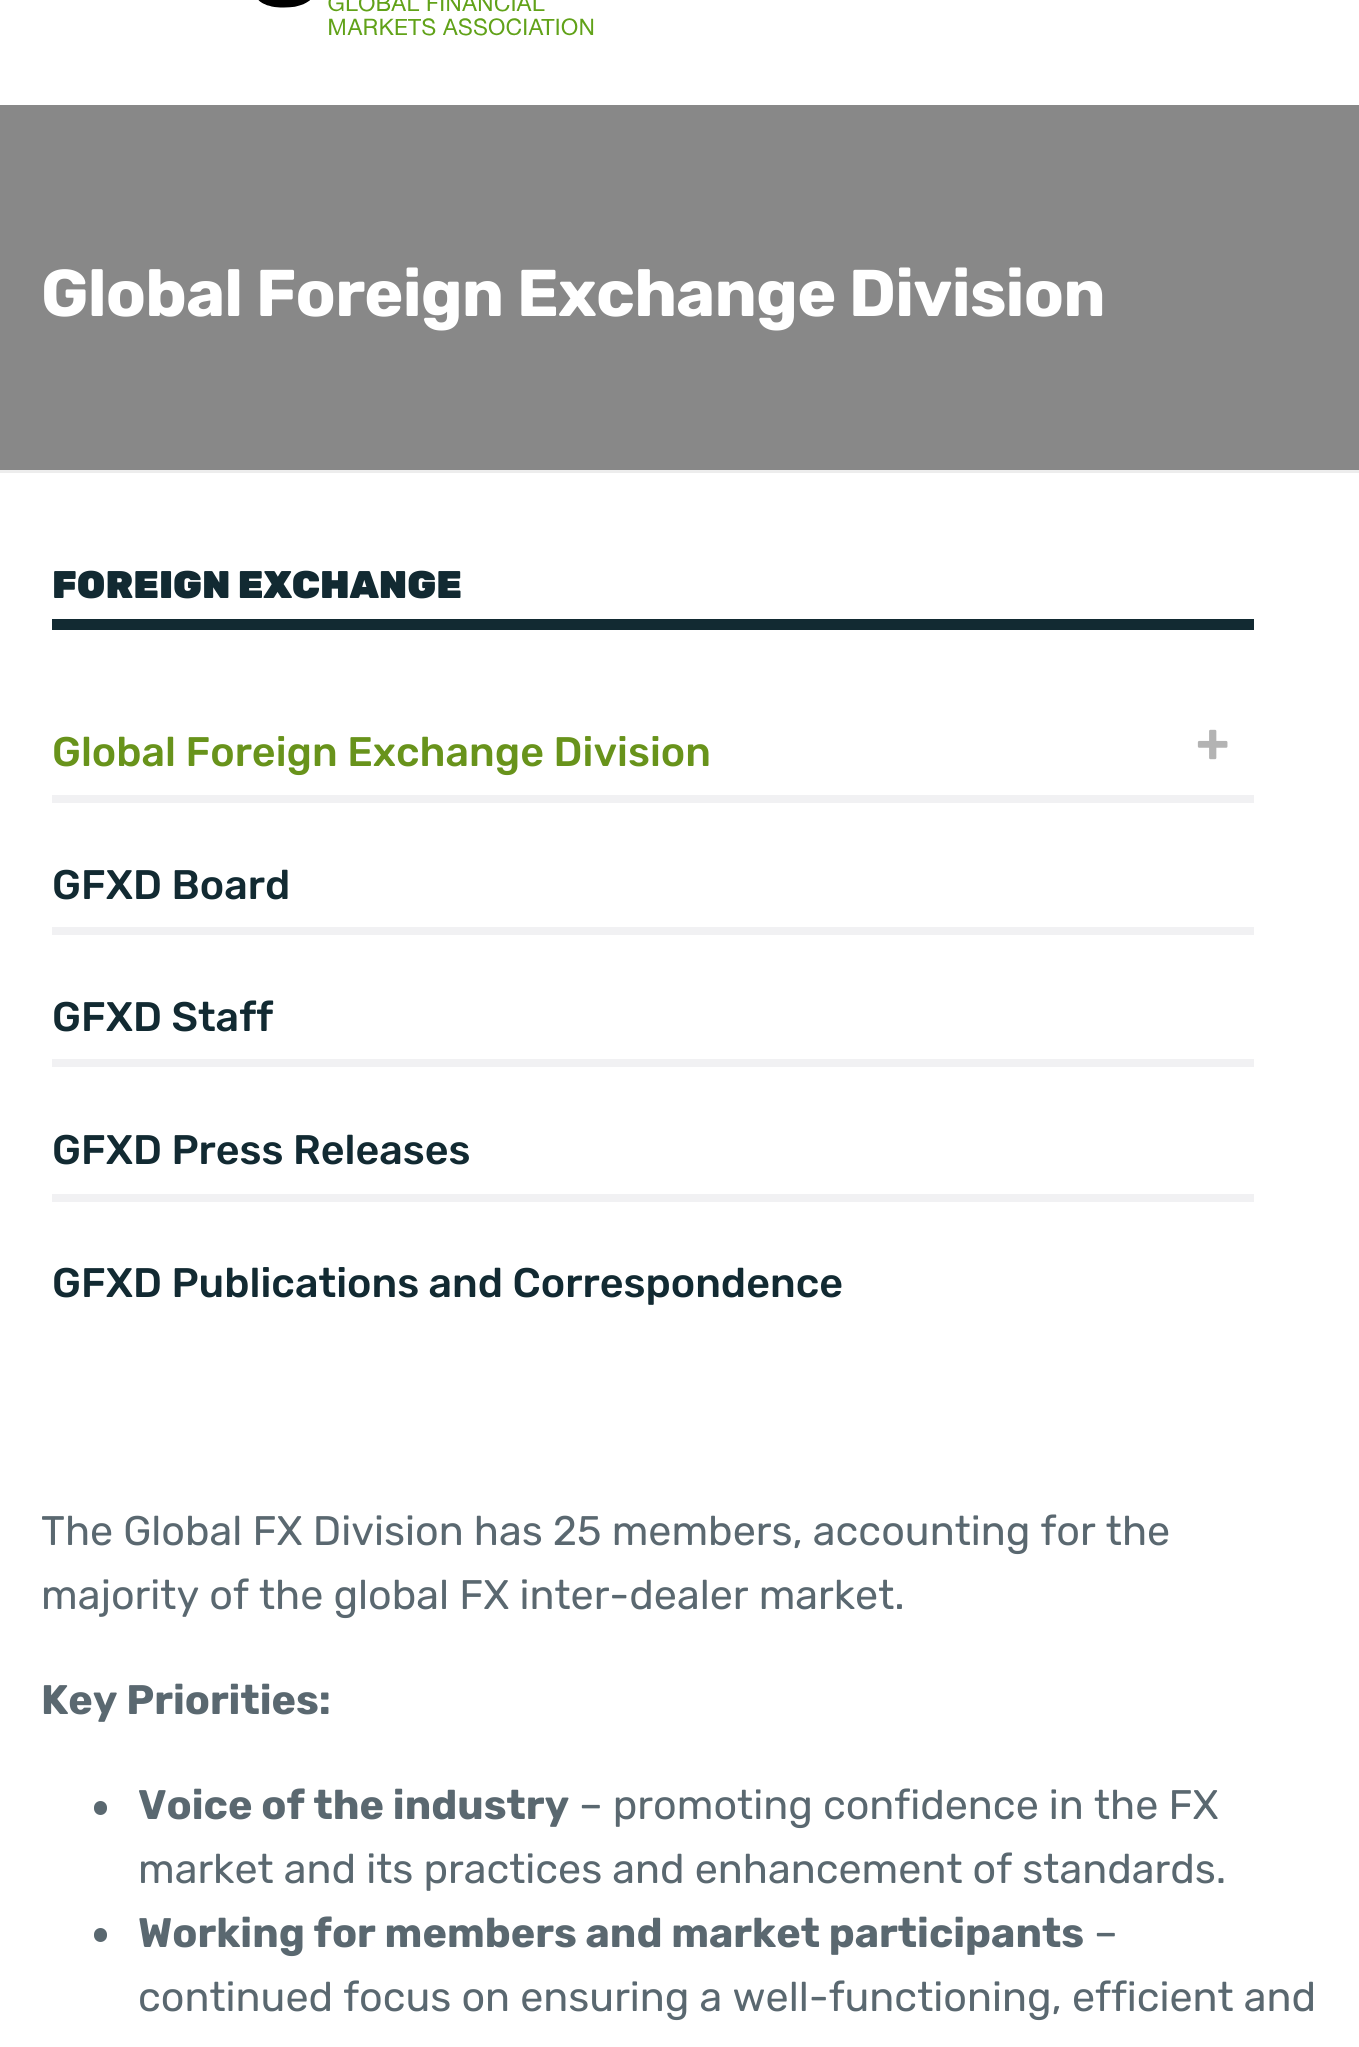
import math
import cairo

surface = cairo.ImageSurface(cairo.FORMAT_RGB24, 1359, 2047)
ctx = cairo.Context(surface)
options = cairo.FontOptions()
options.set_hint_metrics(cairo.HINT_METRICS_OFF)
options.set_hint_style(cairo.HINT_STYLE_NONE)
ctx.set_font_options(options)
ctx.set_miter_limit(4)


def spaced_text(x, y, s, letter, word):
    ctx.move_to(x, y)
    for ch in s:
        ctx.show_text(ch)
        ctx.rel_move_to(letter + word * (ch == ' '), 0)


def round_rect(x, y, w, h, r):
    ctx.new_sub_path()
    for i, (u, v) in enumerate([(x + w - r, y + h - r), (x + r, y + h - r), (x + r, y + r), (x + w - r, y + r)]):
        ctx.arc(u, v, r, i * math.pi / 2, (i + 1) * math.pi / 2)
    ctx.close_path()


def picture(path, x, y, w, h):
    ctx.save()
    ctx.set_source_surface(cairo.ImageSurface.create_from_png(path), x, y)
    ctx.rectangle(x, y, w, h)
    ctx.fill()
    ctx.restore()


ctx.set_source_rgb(1, 1, 1)
ctx.paint()
ctx.set_source_rgb(0.533, 0.533, 0.533)
ctx.rectangle(0, 105, 1359, 365)
ctx.fill()
ctx.set_source_rgb(0.929, 0.929, 0.929)
ctx.rectangle(0, 470, 1359, 3)
ctx.fill()
picture("img1.png", 258, 0, 336, 36)
ctx.select_font_face("Rubik", cairo.FONT_SLANT_NORMAL, cairo.FONT_WEIGHT_BOLD)
ctx.set_font_size(66)
ctx.set_source_rgb(1, 1, 1)
spaced_text(41, 316, "Global Foreign Exchange Division", -0.8, 0)
ctx.set_source_rgb(0.071, 0.165, 0.196)
ctx.rectangle(52, 619, 1202, 11)
ctx.fill()
ctx.select_font_face("Rubik Black")
ctx.set_font_size(38.5)
ctx.move_to(52, 598)
ctx.show_text("FOREIGN EXCHANGE")
ctx.set_source_rgb(0.945, 0.945, 0.953)
ctx.rectangle(52, 795, 1202, 8)
ctx.fill()
ctx.select_font_face("Rubik Medium")
ctx.set_font_size(41.25)
ctx.set_source_rgb(0.408, 0.576, 0.106)
ctx.move_to(52, 766)
ctx.show_text("Global Foreign Exchange Division")
ctx.select_font_face("Rubik", cairo.FONT_SLANT_NORMAL, cairo.FONT_WEIGHT_BOLD)
ctx.set_font_size(55)
ctx.set_source_rgb(0.702, 0.702, 0.702)
ctx.move_to(1196, 761)
ctx.show_text("+")
ctx.set_source_rgb(0.945, 0.945, 0.953)
ctx.rectangle(52, 927, 1202, 8)
ctx.fill()
ctx.select_font_face("Rubik Medium")
ctx.set_font_size(41.25)
ctx.set_source_rgb(0.071, 0.165, 0.196)
ctx.move_to(52, 899)
ctx.show_text("GFXD Board")
ctx.set_source_rgb(0.945, 0.945, 0.953)
ctx.rectangle(52, 1059, 1202, 8)
ctx.fill()
ctx.set_source_rgb(0.071, 0.165, 0.196)
ctx.move_to(52, 1031)
ctx.show_text("GFXD Staff")
ctx.set_source_rgb(0.945, 0.945, 0.953)
ctx.rectangle(52, 1194, 1202, 8)
ctx.fill()
ctx.set_source_rgb(0.071, 0.165, 0.196)
ctx.move_to(52, 1164)
ctx.show_text("GFXD Press Releases")
ctx.move_to(52, 1297)
ctx.show_text("GFXD Publications and Correspondence")
ctx.select_font_face("Rubik")
ctx.set_source_rgb(0.353, 0.408, 0.439)
ctx.move_to(41, 1545)
ctx.show_text("The Global FX Division has 25 members, accounting for the")
ctx.move_to(41, 1609)
ctx.show_text("majority of the global FX inter-dealer market.")
ctx.select_font_face("Rubik", cairo.FONT_SLANT_NORMAL, cairo.FONT_WEIGHT_BOLD)
ctx.move_to(41, 1714)
ctx.show_text("Key Priorities:")
round_rect(94, 1801, 13, 14, 6.5)
ctx.fill()
ctx.move_to(138, 1819)
ctx.show_text("Voice of the industry")
ctx.select_font_face("Rubik")
ctx.move_to(579, 1819)
ctx.show_text("– promoting confidence in the FX")
ctx.move_to(138, 1883)
ctx.show_text("market and its practices and enhancement of standards.")
round_rect(94, 1928, 13, 14, 6.5)
ctx.fill()
ctx.select_font_face("Rubik", cairo.FONT_SLANT_NORMAL, cairo.FONT_WEIGHT_BOLD)
ctx.move_to(138, 1947)
ctx.show_text("Working for members and market participants")
ctx.select_font_face("Rubik")
ctx.move_to(1094, 1947)
ctx.show_text("–")
ctx.move_to(138, 2011)
ctx.show_text("continued focus on ensuring a well-functioning, efficient and")
surface.write_to_png("page.png")
